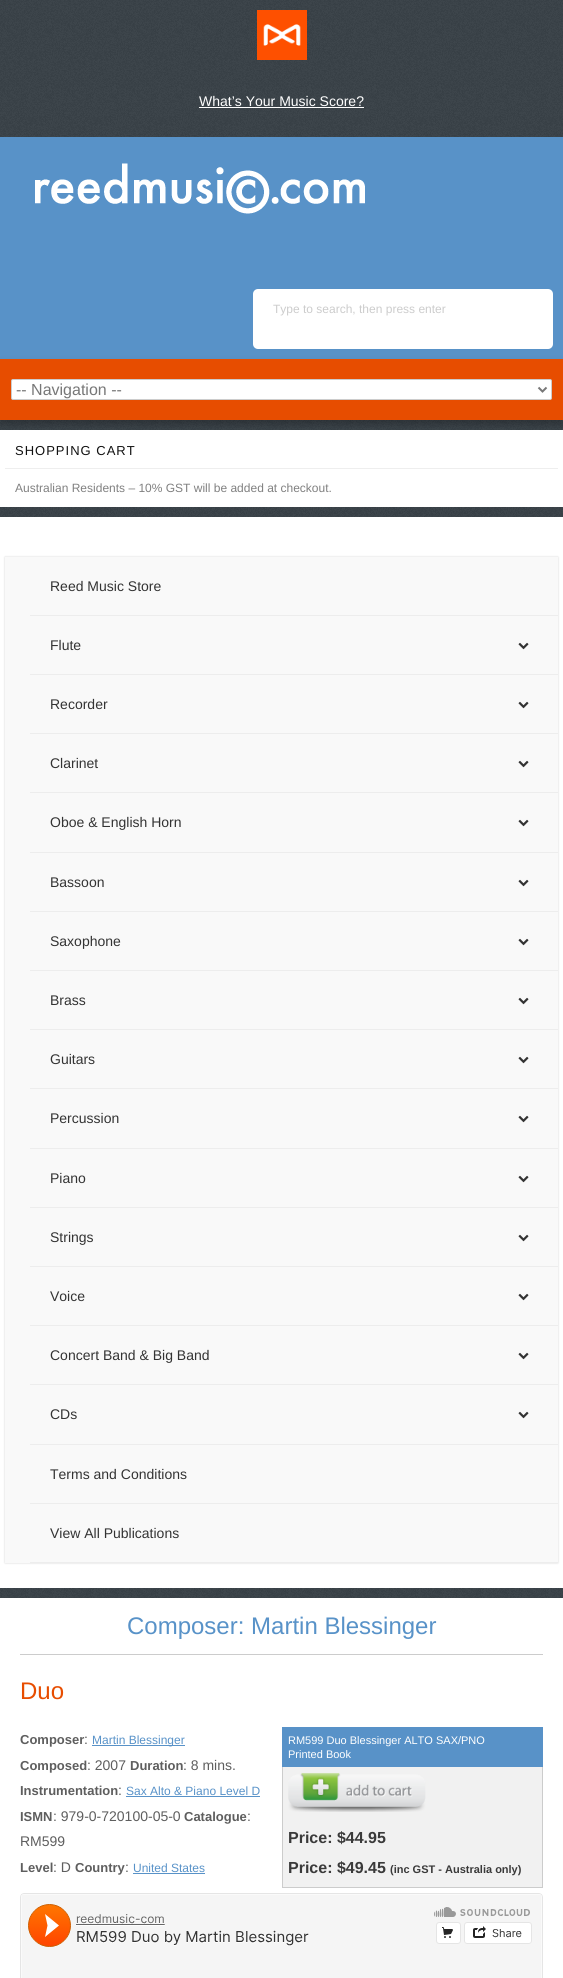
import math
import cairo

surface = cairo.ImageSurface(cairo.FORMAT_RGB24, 563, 1978)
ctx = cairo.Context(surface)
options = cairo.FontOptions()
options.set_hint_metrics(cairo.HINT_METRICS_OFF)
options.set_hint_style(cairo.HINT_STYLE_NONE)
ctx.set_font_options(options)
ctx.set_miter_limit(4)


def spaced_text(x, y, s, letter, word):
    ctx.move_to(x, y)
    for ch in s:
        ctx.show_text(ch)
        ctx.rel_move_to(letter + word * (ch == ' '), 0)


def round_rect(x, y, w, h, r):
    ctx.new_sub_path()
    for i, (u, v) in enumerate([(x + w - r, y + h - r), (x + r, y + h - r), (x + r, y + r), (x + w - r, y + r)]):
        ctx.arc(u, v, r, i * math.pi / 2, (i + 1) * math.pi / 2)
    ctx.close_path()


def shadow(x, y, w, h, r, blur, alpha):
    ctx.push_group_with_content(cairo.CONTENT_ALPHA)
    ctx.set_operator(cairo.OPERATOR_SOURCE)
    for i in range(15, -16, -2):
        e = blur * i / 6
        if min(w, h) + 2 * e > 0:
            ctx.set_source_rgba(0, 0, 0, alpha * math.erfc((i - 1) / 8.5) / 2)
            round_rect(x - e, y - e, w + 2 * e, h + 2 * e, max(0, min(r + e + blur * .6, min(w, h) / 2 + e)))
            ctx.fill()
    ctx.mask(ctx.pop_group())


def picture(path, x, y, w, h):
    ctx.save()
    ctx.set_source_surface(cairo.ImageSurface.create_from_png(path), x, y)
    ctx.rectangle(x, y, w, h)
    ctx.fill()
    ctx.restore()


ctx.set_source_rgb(1, 1, 1)
ctx.paint()
picture("img1.png", 0, 0, 563, 1598)
picture("img2.png", 257, 10, 50, 50)
ctx.select_font_face("Liberation Sans")
ctx.set_font_size(14)
ctx.set_source_rgb(1, 1, 1)
ctx.move_to(199, 106)
ctx.show_text("What’s Your Music Score?")
ctx.rectangle(199, 107, 165, 1)
ctx.fill()
ctx.set_source_rgb(0.345, 0.573, 0.784)
ctx.rectangle(0, 137, 563, 222)
ctx.fill()
picture("img3.png", 35, 163, 330, 51)
ctx.set_source_rgb(1, 1, 1)
round_rect(253, 289, 300, 60, 5)
ctx.fill()
ctx.set_font_size(12)
ctx.set_source_rgb(0.8, 0.8, 0.8)
ctx.move_to(273, 313)
ctx.show_text("Type to search, then press enter")
ctx.set_source_rgb(0, 0, 0)
shadow(0, 364, 563, 61, 0, 4, 0.25)
ctx.set_source_rgb(0.906, 0.302, 0)
ctx.rectangle(0, 359, 563, 61)
ctx.fill()
ctx.set_source_rgb(1, 1, 1)
round_rect(11.5, 379.5, 540, 20, 1.5)
ctx.fill_preserve()
ctx.set_source_rgb(0.8, 0.8, 0.8)
ctx.set_line_width(1)
ctx.stroke()
ctx.new_path()
ctx.move_to(538.5, 387.5)
ctx.line_to(542.5, 391.5)
ctx.line_to(546.5, 387.5)
ctx.set_source_rgb(0.467, 0.467, 0.467)
ctx.set_line_width(2)
ctx.stroke()
ctx.set_font_size(16)
ctx.move_to(16, 395)
ctx.show_text("-- Navigation --")
ctx.set_source_rgb(1, 1, 1)
ctx.rectangle(0, 430, 563, 77)
ctx.fill()
ctx.set_source_rgb(0.933, 0.933, 0.933)
ctx.rectangle(5, 468, 553, 1)
ctx.fill()
ctx.set_font_size(13)
ctx.set_source_rgb(0.067, 0.067, 0.067)
spaced_text(15, 455, "SHOPPING CART", 1, 0)
ctx.set_font_size(12)
ctx.set_source_rgb(0.502, 0.502, 0.502)
ctx.move_to(15, 492)
ctx.show_text("Australian Residents – 10% GST will be added at checkout.")
ctx.set_source_rgb(1, 1, 1)
ctx.rectangle(0, 517, 563, 1071)
ctx.fill()
ctx.set_source_rgb(0, 0, 0)
shadow(5, 557, 553, 1006, 0, 1, 0.17)
ctx.set_source_rgb(0.976, 0.976, 0.976)
ctx.rectangle(5, 557, 553, 1006)
ctx.fill()
ctx.set_source_rgb(0.929, 0.929, 0.929)
ctx.rectangle(30, 615, 528, 1)
ctx.fill()
ctx.set_font_size(14)
ctx.set_source_rgb(0.2, 0.2, 0.2)
ctx.move_to(50, 591)
ctx.show_text("Reed Music Store")
ctx.set_source_rgb(0.929, 0.929, 0.929)
ctx.rectangle(30, 674, 528, 1)
ctx.fill()
ctx.set_source_rgb(0.2, 0.2, 0.2)
ctx.move_to(50, 650)
ctx.show_text("Flute")
picture("img4.png", 518, 642, 11, 8)
ctx.set_source_rgb(0.929, 0.929, 0.929)
ctx.rectangle(30, 733, 528, 1)
ctx.fill()
ctx.set_source_rgb(0.2, 0.2, 0.2)
ctx.move_to(50, 709)
ctx.show_text("Recorder")
picture("img4.png", 518, 701, 11, 8)
ctx.set_source_rgb(0.929, 0.929, 0.929)
ctx.rectangle(30, 792, 528, 1)
ctx.fill()
ctx.set_source_rgb(0.2, 0.2, 0.2)
ctx.move_to(50, 768)
ctx.show_text("Clarinet")
picture("img4.png", 518, 760, 11, 8)
ctx.set_source_rgb(0.929, 0.929, 0.929)
ctx.rectangle(30, 852, 528, 1)
ctx.fill()
ctx.set_source_rgb(0.2, 0.2, 0.2)
ctx.move_to(50, 827)
ctx.show_text("Oboe & English Horn")
picture("img4.png", 518, 819, 11, 8)
ctx.set_source_rgb(0.929, 0.929, 0.929)
ctx.rectangle(30, 911, 528, 1)
ctx.fill()
ctx.set_source_rgb(0.2, 0.2, 0.2)
ctx.move_to(50, 887)
ctx.show_text("Bassoon")
picture("img4.png", 518, 879, 11, 8)
ctx.set_source_rgb(0.929, 0.929, 0.929)
ctx.rectangle(30, 970, 528, 1)
ctx.fill()
ctx.set_source_rgb(0.2, 0.2, 0.2)
ctx.move_to(50, 946)
ctx.show_text("Saxophone")
picture("img4.png", 518, 938, 11, 8)
ctx.set_source_rgb(0.929, 0.929, 0.929)
ctx.rectangle(30, 1029, 528, 1)
ctx.fill()
ctx.set_source_rgb(0.2, 0.2, 0.2)
ctx.move_to(50, 1005)
ctx.show_text("Brass")
picture("img4.png", 518, 997, 11, 8)
ctx.set_source_rgb(0.929, 0.929, 0.929)
ctx.rectangle(30, 1088, 528, 1)
ctx.fill()
ctx.set_source_rgb(0.2, 0.2, 0.2)
ctx.move_to(50, 1064)
ctx.show_text("Guitars")
picture("img4.png", 518, 1056, 11, 8)
ctx.set_source_rgb(0.929, 0.929, 0.929)
ctx.rectangle(30, 1148, 528, 1)
ctx.fill()
ctx.set_source_rgb(0.2, 0.2, 0.2)
ctx.move_to(50, 1123)
ctx.show_text("Percussion")
picture("img4.png", 518, 1115, 11, 8)
ctx.set_source_rgb(0.929, 0.929, 0.929)
ctx.rectangle(30, 1207, 528, 1)
ctx.fill()
ctx.set_source_rgb(0.2, 0.2, 0.2)
ctx.move_to(50, 1183)
ctx.show_text("Piano")
picture("img4.png", 518, 1175, 11, 8)
ctx.set_source_rgb(0.929, 0.929, 0.929)
ctx.rectangle(30, 1266, 528, 1)
ctx.fill()
ctx.set_source_rgb(0.2, 0.2, 0.2)
ctx.move_to(50, 1242)
ctx.show_text("Strings")
picture("img4.png", 518, 1234, 11, 8)
ctx.set_source_rgb(0.929, 0.929, 0.929)
ctx.rectangle(30, 1325, 528, 1)
ctx.fill()
ctx.set_source_rgb(0.2, 0.2, 0.2)
ctx.move_to(50, 1301)
ctx.show_text("Voice")
picture("img4.png", 518, 1293, 11, 8)
ctx.set_source_rgb(0.929, 0.929, 0.929)
ctx.rectangle(30, 1384, 528, 1)
ctx.fill()
ctx.set_source_rgb(0.2, 0.2, 0.2)
ctx.move_to(50, 1360)
ctx.show_text("Concert Band & Big Band")
picture("img4.png", 518, 1352, 11, 8)
ctx.set_source_rgb(0.929, 0.929, 0.929)
ctx.rectangle(30, 1444, 528, 1)
ctx.fill()
ctx.set_source_rgb(0.2, 0.2, 0.2)
ctx.move_to(50, 1419)
ctx.show_text("CDs")
picture("img4.png", 518, 1411, 11, 8)
ctx.set_source_rgb(0.929, 0.929, 0.929)
ctx.rectangle(30, 1503, 528, 1)
ctx.fill()
ctx.set_source_rgb(0.2, 0.2, 0.2)
ctx.move_to(50, 1479)
ctx.show_text("Terms and Conditions")
ctx.set_source_rgb(0.929, 0.929, 0.929)
ctx.rectangle(30, 1562, 528, 1)
ctx.fill()
ctx.set_source_rgb(0.2, 0.2, 0.2)
ctx.move_to(50, 1538)
ctx.show_text("View All Publications")
ctx.set_source_rgb(0.8, 0.8, 0.8)
ctx.rectangle(20, 1654, 523, 1)
ctx.fill()
ctx.set_font_size(24)
ctx.set_source_rgb(0.345, 0.573, 0.784)
ctx.move_to(127, 1634)
ctx.show_text("Composer: Martin Blessinger")
ctx.set_source_rgb(0.906, 0.302, 0)
ctx.move_to(20, 1699)
ctx.show_text("Duo")
ctx.select_font_face("Liberation Sans", cairo.FONT_SLANT_NORMAL, cairo.FONT_WEIGHT_BOLD)
ctx.set_font_size(13)
ctx.set_source_rgb(0.369, 0.369, 0.369)
ctx.move_to(20, 1744)
ctx.show_text("Composer")
ctx.select_font_face("Liberation Sans")
ctx.set_font_size(14)
ctx.move_to(84, 1744)
ctx.show_text(":")
ctx.set_source_rgb(0.345, 0.573, 0.784)
ctx.rectangle(92, 1745, 93, 1)
ctx.fill()
ctx.set_font_size(12)
ctx.move_to(92, 1744)
ctx.show_text("Martin Blessinger")
ctx.select_font_face("Liberation Sans", cairo.FONT_SLANT_NORMAL, cairo.FONT_WEIGHT_BOLD)
ctx.set_font_size(13)
ctx.set_source_rgb(0.369, 0.369, 0.369)
ctx.move_to(20, 1770)
ctx.show_text("Composed")
ctx.select_font_face("Liberation Sans")
ctx.set_font_size(14)
ctx.move_to(87, 1770)
ctx.show_text(": 2007")
ctx.select_font_face("Liberation Sans", cairo.FONT_SLANT_NORMAL, cairo.FONT_WEIGHT_BOLD)
ctx.set_font_size(13)
ctx.move_to(130, 1770)
ctx.show_text("Duration")
ctx.select_font_face("Liberation Sans")
ctx.set_font_size(14)
ctx.move_to(183, 1770)
ctx.show_text(": 8 mins.")
ctx.select_font_face("Liberation Sans", cairo.FONT_SLANT_NORMAL, cairo.FONT_WEIGHT_BOLD)
ctx.set_font_size(13)
ctx.move_to(20, 1795)
ctx.show_text("Instrumentation")
ctx.select_font_face("Liberation Sans")
ctx.set_font_size(14)
ctx.move_to(118, 1795)
ctx.show_text(":")
ctx.set_font_size(12)
ctx.set_source_rgb(0.345, 0.573, 0.784)
ctx.move_to(126, 1795)
ctx.show_text("Sax Alto & Piano Level D")
ctx.rectangle(126, 1796, 134, 1)
ctx.fill()
ctx.select_font_face("Liberation Sans", cairo.FONT_SLANT_NORMAL, cairo.FONT_WEIGHT_BOLD)
ctx.set_font_size(13)
ctx.set_source_rgb(0.369, 0.369, 0.369)
ctx.move_to(20, 1821)
ctx.show_text("ISMN")
ctx.select_font_face("Liberation Sans")
ctx.set_font_size(14)
ctx.move_to(53, 1821)
ctx.show_text(": 979-0-720100-05-0")
ctx.select_font_face("Liberation Sans", cairo.FONT_SLANT_NORMAL, cairo.FONT_WEIGHT_BOLD)
ctx.set_font_size(13)
ctx.move_to(184, 1821)
ctx.show_text("Catalogue")
ctx.select_font_face("Liberation Sans")
ctx.set_font_size(14)
ctx.move_to(247, 1821)
ctx.show_text(":")
ctx.move_to(20, 1846)
ctx.show_text("RM599")
ctx.select_font_face("Liberation Sans", cairo.FONT_SLANT_NORMAL, cairo.FONT_WEIGHT_BOLD)
ctx.set_font_size(13)
ctx.move_to(20, 1872)
ctx.show_text("Level")
ctx.select_font_face("Liberation Sans")
ctx.set_font_size(14)
ctx.move_to(53, 1872)
ctx.show_text(": D")
ctx.select_font_face("Liberation Sans", cairo.FONT_SLANT_NORMAL, cairo.FONT_WEIGHT_BOLD)
ctx.set_font_size(13)
ctx.move_to(75, 1872)
ctx.show_text("Country")
ctx.select_font_face("Liberation Sans")
ctx.set_font_size(14)
ctx.move_to(125, 1872)
ctx.show_text(":")
ctx.set_font_size(12)
ctx.set_source_rgb(0.345, 0.573, 0.784)
ctx.move_to(133, 1872)
ctx.show_text("United States")
ctx.rectangle(133, 1873, 72, 1)
ctx.fill()
ctx.rectangle(282, 1727, 261, 40)
ctx.fill()
ctx.set_font_size(11)
ctx.set_source_rgb(1, 1, 1)
ctx.move_to(288, 1744)
ctx.show_text("RM599 Duo Blessinger ALTO SAX/PNO")
ctx.move_to(288, 1758)
ctx.show_text("Printed Book")
ctx.set_source_rgb(0.945, 0.945, 0.945)
ctx.rectangle(283, 1767, 259, 120)
ctx.fill()
ctx.set_source_rgb(0.8, 0.8, 0.8)
ctx.rectangle(542, 1767, 1, 121)
ctx.fill()
ctx.rectangle(282, 1887, 261, 1)
ctx.fill()
ctx.rectangle(282, 1767, 1, 121)
ctx.fill()
picture("img5.png", 288, 1772, 138, 40)
ctx.select_font_face("Liberation Sans", cairo.FONT_SLANT_NORMAL, cairo.FONT_WEIGHT_BOLD)
ctx.set_font_size(16)
ctx.set_source_rgb(0.227, 0.227, 0.227)
ctx.move_to(288, 1843)
ctx.show_text("Price: $44.95")
ctx.move_to(288, 1873)
ctx.show_text("Price: $49.45")
ctx.set_font_size(11)
ctx.move_to(390, 1873)
ctx.show_text("(inc GST - Australia only)")
picture("img6.png", 20, 1893, 523, 85)
surface.write_to_png("page.png")
